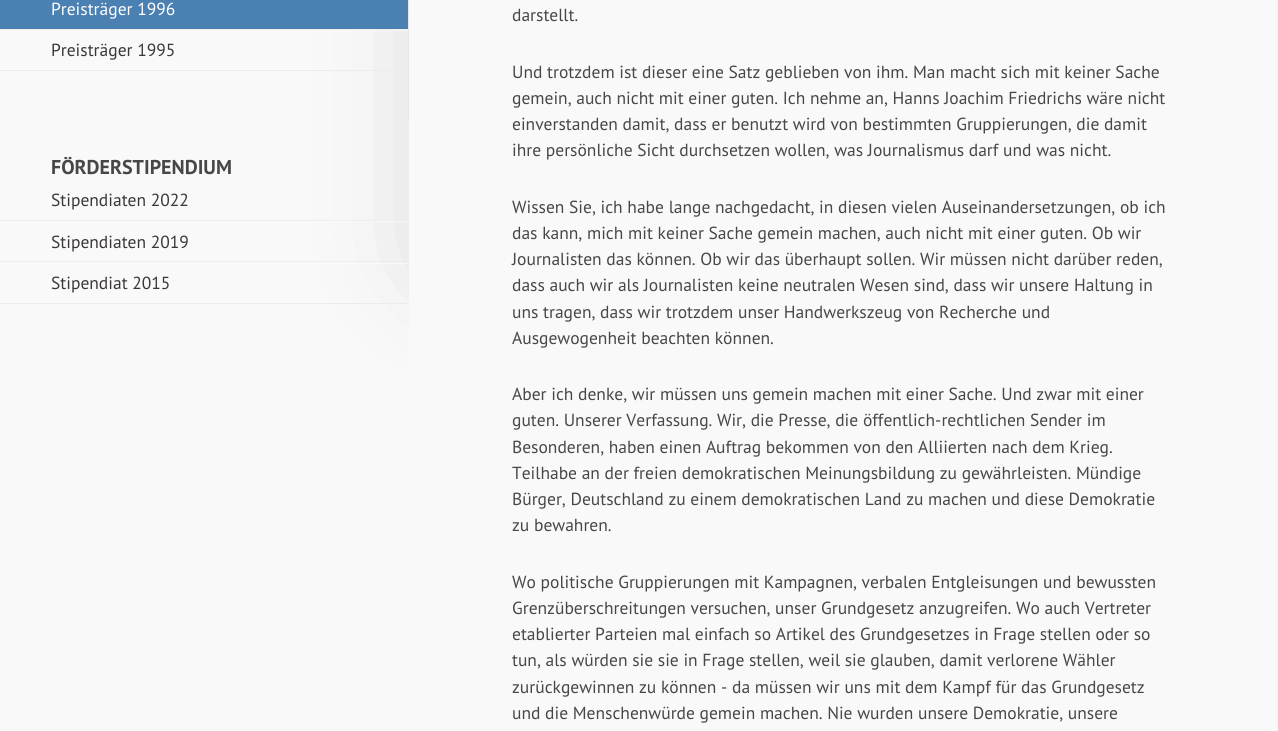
import math
import cairo

surface = cairo.ImageSurface(cairo.FORMAT_RGB24, 1278, 731)
ctx = cairo.Context(surface)
options = cairo.FontOptions()
options.set_hint_metrics(cairo.HINT_METRICS_OFF)
options.set_hint_style(cairo.HINT_STYLE_NONE)
ctx.set_font_options(options)
ctx.set_miter_limit(4)


def round_rect(x, y, w, h, r):
    ctx.new_sub_path()
    for i, (u, v) in enumerate([(x + w - r, y + h - r), (x + r, y + h - r), (x + r, y + r), (x + w - r, y + r)]):
        ctx.arc(u, v, r, i * math.pi / 2, (i + 1) * math.pi / 2)
    ctx.close_path()


def shadow(x, y, w, h, r, blur, alpha):
    ctx.push_group_with_content(cairo.CONTENT_ALPHA)
    ctx.set_operator(cairo.OPERATOR_SOURCE)
    for i in range(15, -16, -2):
        e = blur * i / 6
        if min(w, h) + 2 * e > 0:
            ctx.set_source_rgba(0, 0, 0, alpha * math.erfc((i - 1) / 8.5) / 2)
            round_rect(x - e, y - e, w + 2 * e, h + 2 * e, max(0, min(r + e + blur * .6, min(w, h) / 2 + e)))
            ctx.fill()
    ctx.mask(ctx.pop_group())


ctx.set_source_rgb(0.976, 0.976, 0.976)
ctx.paint()
ctx.save()
ctx.rectangle(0, 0, 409, 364)
ctx.clip()
ctx.set_source_rgb(0, 0, 0)
shadow(446, -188, 205, 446, 0, 62.5, 0.2)
ctx.restore()
ctx.set_source_rgb(0.294, 0.502, 0.698)
ctx.rectangle(0, 0, 408, 29)
ctx.fill()
ctx.set_source_rgb(0.925, 0.925, 0.925)
ctx.rectangle(0, 29, 395, 1)
ctx.fill()
ctx.select_font_face("PT Sans")
ctx.set_font_size(17.5)
ctx.set_source_rgb(1, 1, 1)
ctx.move_to(51, 15)
ctx.show_text("Preisträger 1996")
ctx.set_source_rgba(1, 1, 1, 0.5)
ctx.rectangle(0, 30, 408, 1)
ctx.fill()
ctx.set_source_rgb(0.925, 0.925, 0.925)
ctx.rectangle(0, 70, 395, 1)
ctx.fill()
ctx.set_source_rgb(0.231, 0.216, 0.216)
ctx.move_to(51, 56)
ctx.show_text("Preisträger 1995")
gradient = cairo.LinearGradient(410, -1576, 410, 258)
gradient.add_color_stop_rgba(0, 0, 0, 0, 0)
gradient.add_color_stop_rgba(0.35, 0, 0, 0, 0.1)
gradient.add_color_stop_rgba(0.65, 0, 0, 0, 0.1)
gradient.add_color_stop_rgba(1, 0, 0, 0, 0)
ctx.set_source(gradient)
ctx.rectangle(408, 0, 1, 120)
ctx.fill()
ctx.select_font_face("PT Sans", cairo.FONT_SLANT_NORMAL, cairo.FONT_WEIGHT_BOLD)
ctx.set_font_size(20)
ctx.set_source_rgb(0.275, 0.278, 0.286)
ctx.move_to(51, 174)
ctx.show_text("FÖRDERSTIPENDIUM")
ctx.set_source_rgb(0.925, 0.925, 0.925)
ctx.rectangle(0, 220, 408, 1)
ctx.fill()
ctx.select_font_face("PT Sans")
ctx.set_font_size(17.5)
ctx.set_source_rgb(0.231, 0.216, 0.216)
ctx.move_to(51, 206)
ctx.show_text("Stipendiaten 2022")
ctx.set_source_rgba(1, 1, 1, 0.5)
ctx.rectangle(0, 221, 408, 1)
ctx.fill()
ctx.set_source_rgb(0.925, 0.925, 0.925)
ctx.rectangle(0, 261, 408, 1)
ctx.fill()
ctx.set_source_rgb(0.231, 0.216, 0.216)
ctx.move_to(51, 248)
ctx.show_text("Stipendiaten 2019")
ctx.set_source_rgba(1, 1, 1, 0.5)
ctx.rectangle(0, 263, 408, 1)
ctx.fill()
ctx.set_source_rgb(0.925, 0.925, 0.925)
ctx.rectangle(0, 303, 408, 1)
ctx.fill()
ctx.set_source_rgb(0.231, 0.216, 0.216)
ctx.move_to(51, 289)
ctx.show_text("Stipendiat 2015")
ctx.set_source_rgb(0.275, 0.278, 0.286)
ctx.move_to(512, 21)
ctx.show_text("darstellt.")
ctx.move_to(512, 78)
ctx.show_text("Und trotzdem ist dieser eine Satz geblieben von ihm. Man macht sich mit keiner Sache")
ctx.move_to(512, 104)
ctx.show_text("gemein, auch nicht mit einer guten. Ich nehme an, Hanns Joachim Friedrichs wäre nicht")
ctx.move_to(512, 130)
ctx.show_text("einverstanden damit, dass er benutzt wird von bestimmten Gruppierungen, die damit")
ctx.move_to(512, 156)
ctx.show_text("ihre persönliche Sicht durchsetzen wollen, was Journalismus darf und was nicht.")
ctx.move_to(512, 213)
ctx.show_text("Wissen Sie, ich habe lange nachgedacht, in diesen vielen Auseinandersetzungen, ob ich")
ctx.move_to(512, 239)
ctx.show_text("das kann, mich mit keiner Sache gemein machen, auch nicht mit einer guten. Ob wir")
ctx.move_to(512, 265)
ctx.show_text("Journalisten das können. Ob wir das überhaupt sollen. Wir müssen nicht darüber reden,")
ctx.move_to(512, 291)
ctx.show_text("dass auch wir als Journalisten keine neutralen Wesen sind, dass wir unsere Haltung in")
ctx.move_to(512, 318)
ctx.show_text("uns tragen, dass wir trotzdem unser Handwerkszeug von Recherche und")
ctx.move_to(512, 344)
ctx.show_text("Ausgewogenheit beachten können.")
ctx.move_to(512, 400)
ctx.show_text("Aber ich denke, wir müssen uns gemein machen mit einer Sache. Und zwar mit einer")
ctx.move_to(512, 426)
ctx.show_text("guten. Unserer Verfassung. Wir, die Presse, die öffentlich-rechtlichen Sender im")
ctx.move_to(512, 453)
ctx.show_text("Besonderen, haben einen Auftrag bekommen von den Alliierten nach dem Krieg.")
ctx.move_to(512, 479)
ctx.show_text("Teilhabe an der freien demokratischen Meinungsbildung zu gewährleisten. Mündige")
ctx.move_to(512, 505)
ctx.show_text("Bürger, Deutschland zu einem demokratischen Land zu machen und diese Demokratie")
ctx.move_to(512, 531)
ctx.show_text("zu bewahren.")
ctx.move_to(512, 588)
ctx.show_text("Wo politische Gruppierungen mit Kampagnen, verbalen Entgleisungen und bewussten")
ctx.move_to(512, 614)
ctx.show_text("Grenzüberschreitungen versuchen, unser Grundgesetz anzugreifen. Wo auch Vertreter")
ctx.move_to(512, 640)
ctx.show_text("etablierter Parteien mal einfach so Artikel des Grundgesetzes in Frage stellen oder so")
ctx.move_to(512, 666)
ctx.show_text("tun, als würden sie sie in Frage stellen, weil sie glauben, damit verlorene Wähler")
ctx.move_to(512, 693)
ctx.show_text("zurückgewinnen zu können - da müssen wir uns mit dem Kampf für das Grundgesetz")
ctx.move_to(512, 719)
ctx.show_text("und die Menschenwürde gemein machen. Nie wurden unsere Demokratie, unsere")
surface.write_to_png("page.png")
